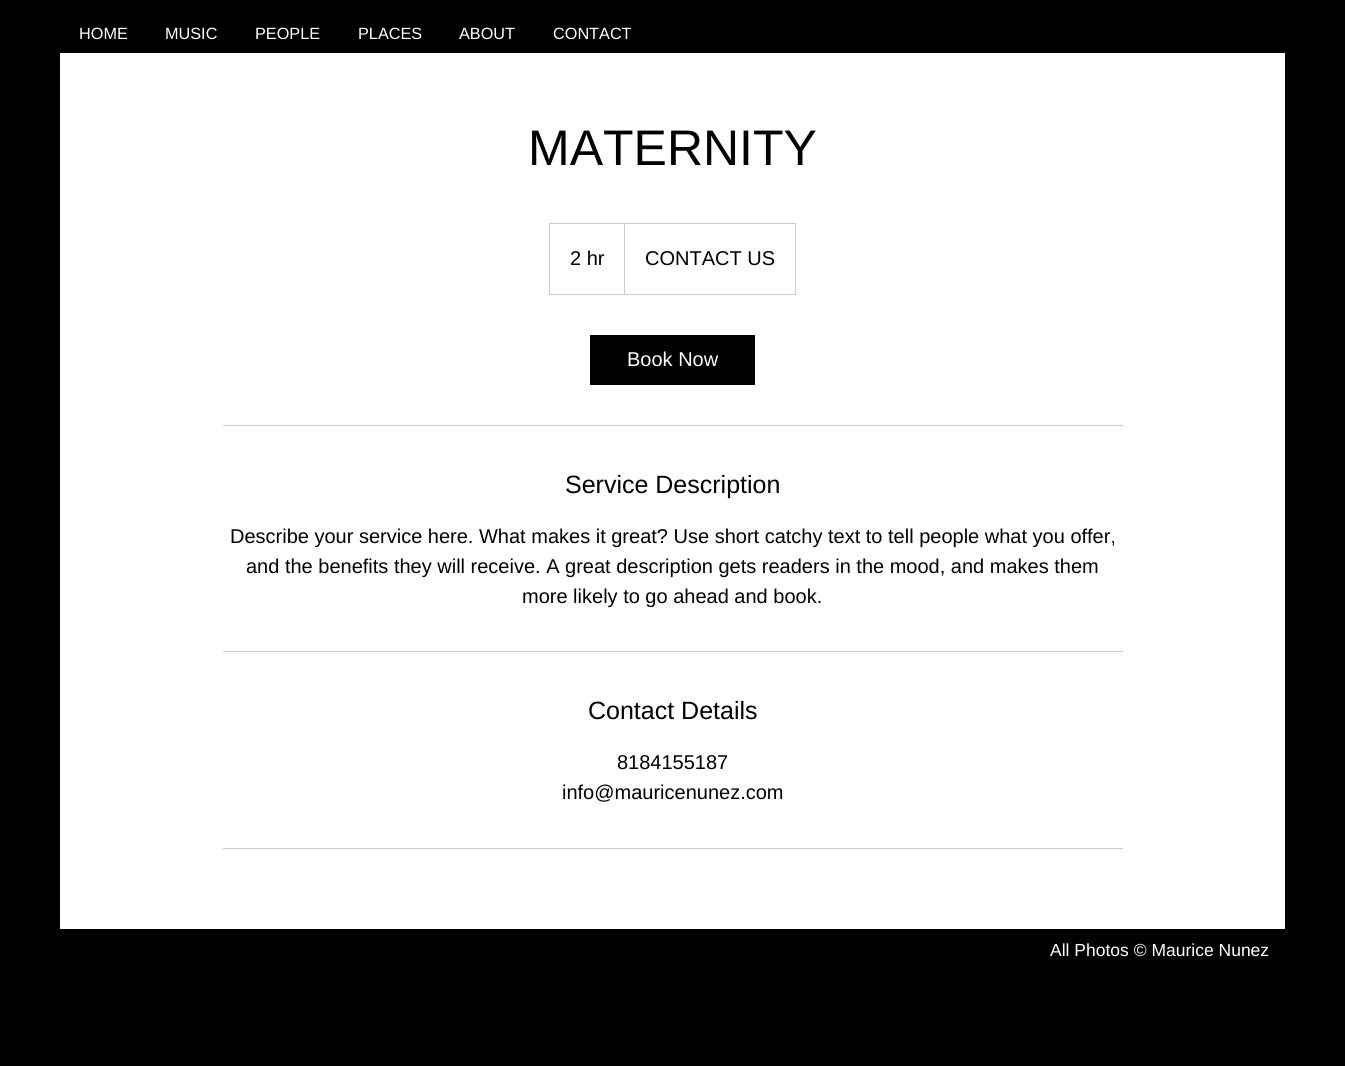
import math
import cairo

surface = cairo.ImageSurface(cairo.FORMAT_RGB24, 1345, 1066)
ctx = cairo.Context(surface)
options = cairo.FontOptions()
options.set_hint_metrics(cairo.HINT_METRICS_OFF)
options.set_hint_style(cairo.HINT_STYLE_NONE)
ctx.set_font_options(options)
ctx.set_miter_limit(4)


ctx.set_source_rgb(0, 0, 0)
ctx.paint()
ctx.select_font_face("Liberation Sans")
ctx.set_font_size(16.25)
ctx.set_source_rgb(1, 1, 1)
ctx.move_to(79, 39)
ctx.show_text("HOME")
ctx.move_to(165, 39)
ctx.show_text("MUSIC")
ctx.move_to(255, 39)
ctx.show_text("PEOPLE")
ctx.move_to(358, 39)
ctx.show_text("PLACES")
ctx.move_to(459, 39)
ctx.show_text("ABOUT")
ctx.move_to(553, 39)
ctx.show_text("CONTACT")
ctx.rectangle(60, 53, 1225, 876)
ctx.fill()
ctx.set_font_size(50)
ctx.set_source_rgb(0, 0, 0)
ctx.move_to(528, 165)
ctx.show_text("MATERNITY")
ctx.rectangle(549.5, 223.5, 246, 71)
ctx.set_source_rgb(0.8, 0.8, 0.8)
ctx.set_line_width(1)
ctx.stroke()
ctx.set_font_size(20)
ctx.set_source_rgb(0, 0, 0)
ctx.move_to(570, 265)
ctx.show_text("2 hr")
ctx.set_source_rgb(0.8, 0.8, 0.8)
ctx.new_path()
ctx.move_to(624, 294)
ctx.line_to(624, 222)
ctx.line_to(625, 224)
ctx.line_to(625, 294)
ctx.close_path()
ctx.fill()
ctx.set_source_rgb(0, 0, 0)
ctx.move_to(645, 265)
ctx.show_text("CONTACT US")
ctx.rectangle(590, 335, 165, 50)
ctx.fill()
ctx.set_source_rgb(1, 1, 1)
ctx.move_to(627, 366)
ctx.show_text("Book Now")
ctx.set_source_rgb(0.8, 0.8, 0.8)
ctx.rectangle(223, 425, 900, 1)
ctx.fill()
ctx.set_font_size(25)
ctx.set_source_rgb(0, 0, 0)
ctx.move_to(565, 493)
ctx.show_text("Service Description")
ctx.set_font_size(20)
ctx.move_to(230, 543)
ctx.show_text("Describe your service here. What makes it great? Use short catchy text to tell people what you offer,")
ctx.move_to(246, 573)
ctx.show_text("and the benefits they will receive. A great description gets readers in the mood, and makes them")
ctx.move_to(522, 603)
ctx.show_text("more likely to go ahead and book.")
ctx.set_source_rgb(0.8, 0.8, 0.8)
ctx.rectangle(223, 651, 900, 1)
ctx.fill()
ctx.set_font_size(25)
ctx.set_source_rgb(0, 0, 0)
ctx.move_to(588, 719)
ctx.show_text("Contact Details")
ctx.set_font_size(20)
ctx.move_to(617, 769)
ctx.show_text("8184155187")
ctx.move_to(562, 799)
ctx.show_text("info@mauricenunez.com")
ctx.set_source_rgb(0.8, 0.8, 0.8)
ctx.rectangle(223, 848, 900, 1)
ctx.fill()
ctx.set_font_size(17.5)
ctx.set_source_rgb(1, 1, 1)
ctx.move_to(1050, 956)
ctx.show_text("All Photos © Maurice Nunez")
surface.write_to_png("page.png")
